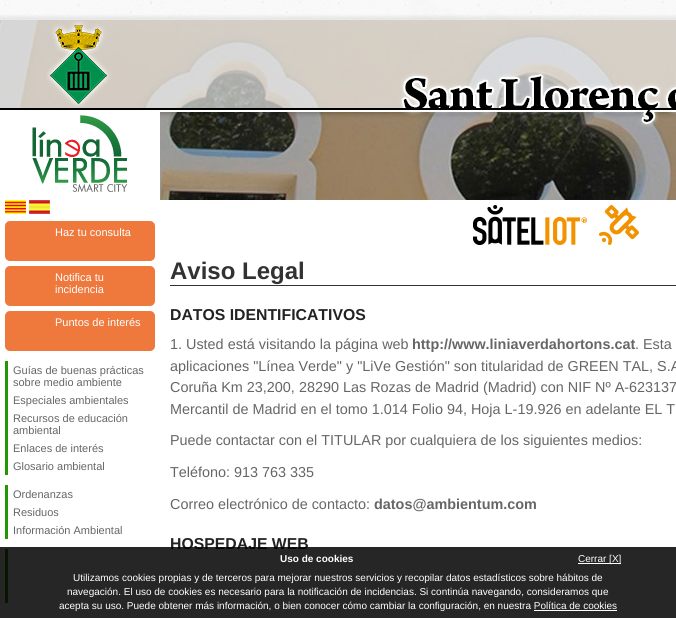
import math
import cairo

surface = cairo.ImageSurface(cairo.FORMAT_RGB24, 676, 618)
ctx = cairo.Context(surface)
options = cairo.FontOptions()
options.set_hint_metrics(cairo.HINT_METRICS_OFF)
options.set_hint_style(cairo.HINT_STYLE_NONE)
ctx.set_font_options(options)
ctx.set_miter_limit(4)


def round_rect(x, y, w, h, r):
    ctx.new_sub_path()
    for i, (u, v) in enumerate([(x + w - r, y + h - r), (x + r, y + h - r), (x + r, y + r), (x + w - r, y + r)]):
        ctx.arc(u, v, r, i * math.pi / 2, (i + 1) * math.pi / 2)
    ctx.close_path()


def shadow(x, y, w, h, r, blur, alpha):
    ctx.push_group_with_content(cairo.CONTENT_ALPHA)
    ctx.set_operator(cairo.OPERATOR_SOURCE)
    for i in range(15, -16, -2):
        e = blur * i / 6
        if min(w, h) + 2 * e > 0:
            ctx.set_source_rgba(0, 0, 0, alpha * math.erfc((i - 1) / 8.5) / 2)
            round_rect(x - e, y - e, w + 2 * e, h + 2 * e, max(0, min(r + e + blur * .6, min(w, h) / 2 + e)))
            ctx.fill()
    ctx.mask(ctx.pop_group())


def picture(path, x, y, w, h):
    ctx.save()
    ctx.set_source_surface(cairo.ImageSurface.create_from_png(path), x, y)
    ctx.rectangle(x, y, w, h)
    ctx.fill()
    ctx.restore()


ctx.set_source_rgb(1, 1, 1)
ctx.paint()
picture("img1.png", 0, 0, 676, 20)
ctx.set_source_rgb(0, 0, 0)
shadow(-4, 16, 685, 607, 0, 1.5, 0.07)
ctx.set_source_rgb(1, 1, 1)
ctx.rectangle(0, 110, 676, 508)
ctx.fill()
picture("img2.png", 0, 20, 676, 90)
picture("img3.png", 32, 115, 96, 77)
picture("img4.png", 160, 110, 516, 90)
picture("img5.png", 473, 205, 166, 40)
picture("img6.png", 5, 200, 21, 14)
picture("img7.png", 29, 200, 21, 14)
ctx.set_source_rgb(0.937, 0.471, 0.239)
round_rect(5, 221, 150, 40, 5)
ctx.fill()
ctx.select_font_face("Liberation Sans")
ctx.set_font_size(11)
ctx.set_source_rgb(1, 1, 1)
ctx.move_to(55, 236)
ctx.show_text("Haz tu consulta")
ctx.set_source_rgb(0.937, 0.471, 0.239)
round_rect(5, 266, 150, 40, 5)
ctx.fill()
ctx.set_source_rgb(1, 1, 1)
ctx.move_to(55, 281)
ctx.show_text("Notifica tu")
ctx.move_to(55, 293)
ctx.show_text("incidencia")
ctx.set_source_rgb(0.937, 0.471, 0.239)
round_rect(5, 311, 150, 40, 5)
ctx.fill()
ctx.set_source_rgb(1, 1, 1)
ctx.move_to(55, 326)
ctx.show_text("Puntos de interés")
ctx.set_source_rgb(0.145, 0.588, 0.012)
ctx.rectangle(5, 361, 3, 114)
ctx.fill()
ctx.set_source_rgb(0.4, 0.4, 0.4)
ctx.move_to(13, 374)
ctx.show_text("Guías de buenas prácticas")
ctx.move_to(13, 386)
ctx.show_text("sobre medio ambiente")
ctx.move_to(13, 404)
ctx.show_text("Especiales ambientales")
ctx.move_to(13, 422)
ctx.show_text("Recursos de educación")
ctx.move_to(13, 434)
ctx.show_text("ambiental")
ctx.move_to(13, 452)
ctx.show_text("Enlaces de interés")
ctx.move_to(13, 470)
ctx.show_text("Glosario ambiental")
ctx.set_source_rgb(0.145, 0.588, 0.012)
ctx.rectangle(5, 485, 3, 54)
ctx.fill()
ctx.set_source_rgb(0.4, 0.4, 0.4)
ctx.move_to(13, 498)
ctx.show_text("Ordenanzas")
ctx.move_to(13, 516)
ctx.show_text("Residuos")
ctx.move_to(13, 534)
ctx.show_text("Información Ambiental")
ctx.set_source_rgb(0.145, 0.588, 0.012)
ctx.rectangle(5, 549, 3, 54)
ctx.fill()
ctx.set_source_rgb(0.2, 0.196, 0.2)
ctx.rectangle(170, 285, 506, 1)
ctx.fill()
ctx.select_font_face("Liberation Sans", cairo.FONT_SLANT_NORMAL, cairo.FONT_WEIGHT_BOLD)
ctx.set_font_size(24)
ctx.move_to(170, 279)
ctx.show_text("Aviso Legal")
ctx.set_font_size(15.8)
ctx.set_source_rgb(0.137, 0.137, 0.137)
ctx.move_to(170, 320)
ctx.show_text("DATOS IDENTIFICATIVOS")
ctx.select_font_face("Liberation Sans")
ctx.set_font_size(14.4)
ctx.set_source_rgb(0.4, 0.4, 0.4)
ctx.move_to(170, 349)
ctx.show_text("1. Usted está visitando la página web")
ctx.select_font_face("Liberation Sans", cairo.FONT_SLANT_NORMAL, cairo.FONT_WEIGHT_BOLD)
ctx.move_to(412, 349)
ctx.show_text("http://www.liniaverdahortons.cat")
ctx.select_font_face("Liberation Sans")
ctx.move_to(635, 349)
ctx.show_text(". Esta")
ctx.move_to(170, 371)
ctx.show_text("aplicaciones \"Línea Verde\" y \"LiVe Gestión\" son titularidad de GREEN TAL, S.A")
ctx.move_to(170, 392)
ctx.show_text("Coruña Km 23,200, 28290 Las Rozas de Madrid (Madrid) con NIF Nº A-623137")
ctx.move_to(170, 414)
ctx.show_text("Mercantil de Madrid en el tomo 1.014 Folio 94, Hoja L-19.926 en adelante EL T")
ctx.move_to(170, 445)
ctx.show_text("Puede contactar con el TITULAR por cualquiera de los siguientes medios:")
ctx.move_to(170, 477)
ctx.show_text("Teléfono: 913 763 335")
ctx.move_to(170, 509)
ctx.show_text("Correo electrónico de contacto:")
ctx.select_font_face("Liberation Sans", cairo.FONT_SLANT_NORMAL, cairo.FONT_WEIGHT_BOLD)
ctx.move_to(374, 509)
ctx.show_text("datos@ambientum.com")
ctx.set_font_size(15.8)
ctx.set_source_rgb(0.137, 0.137, 0.137)
ctx.move_to(170, 549)
ctx.show_text("HOSPEDAJE WEB")
ctx.set_source_rgba(0, 0, 0, 0.85)
ctx.rectangle(0, 547, 676, 71)
ctx.fill()
ctx.set_font_size(10)
ctx.set_source_rgb(1, 1, 1)
ctx.move_to(280, 562)
ctx.show_text("Uso de cookies")
ctx.rectangle(578, 563, 43, 1)
ctx.fill()
ctx.select_font_face("Liberation Sans")
ctx.move_to(578, 562)
ctx.show_text("Cerrar [X]")
ctx.move_to(73, 581)
ctx.show_text("Utilizamos cookies propias y de terceros para mejorar nuestros servicios y recopilar datos estadísticos sobre hábitos de")
ctx.move_to(67, 595)
ctx.show_text("navegación. El uso de cookies es necesario para la notificación de incidencias. Si continúa navegando, consideramos que")
ctx.move_to(59, 609)
ctx.show_text("acepta su uso. Puede obtener más información, o bien conocer cómo cambiar la configuración, en nuestra Política de cookies")
ctx.rectangle(534, 610, 83, 1)
ctx.fill()
surface.write_to_png("page.png")
